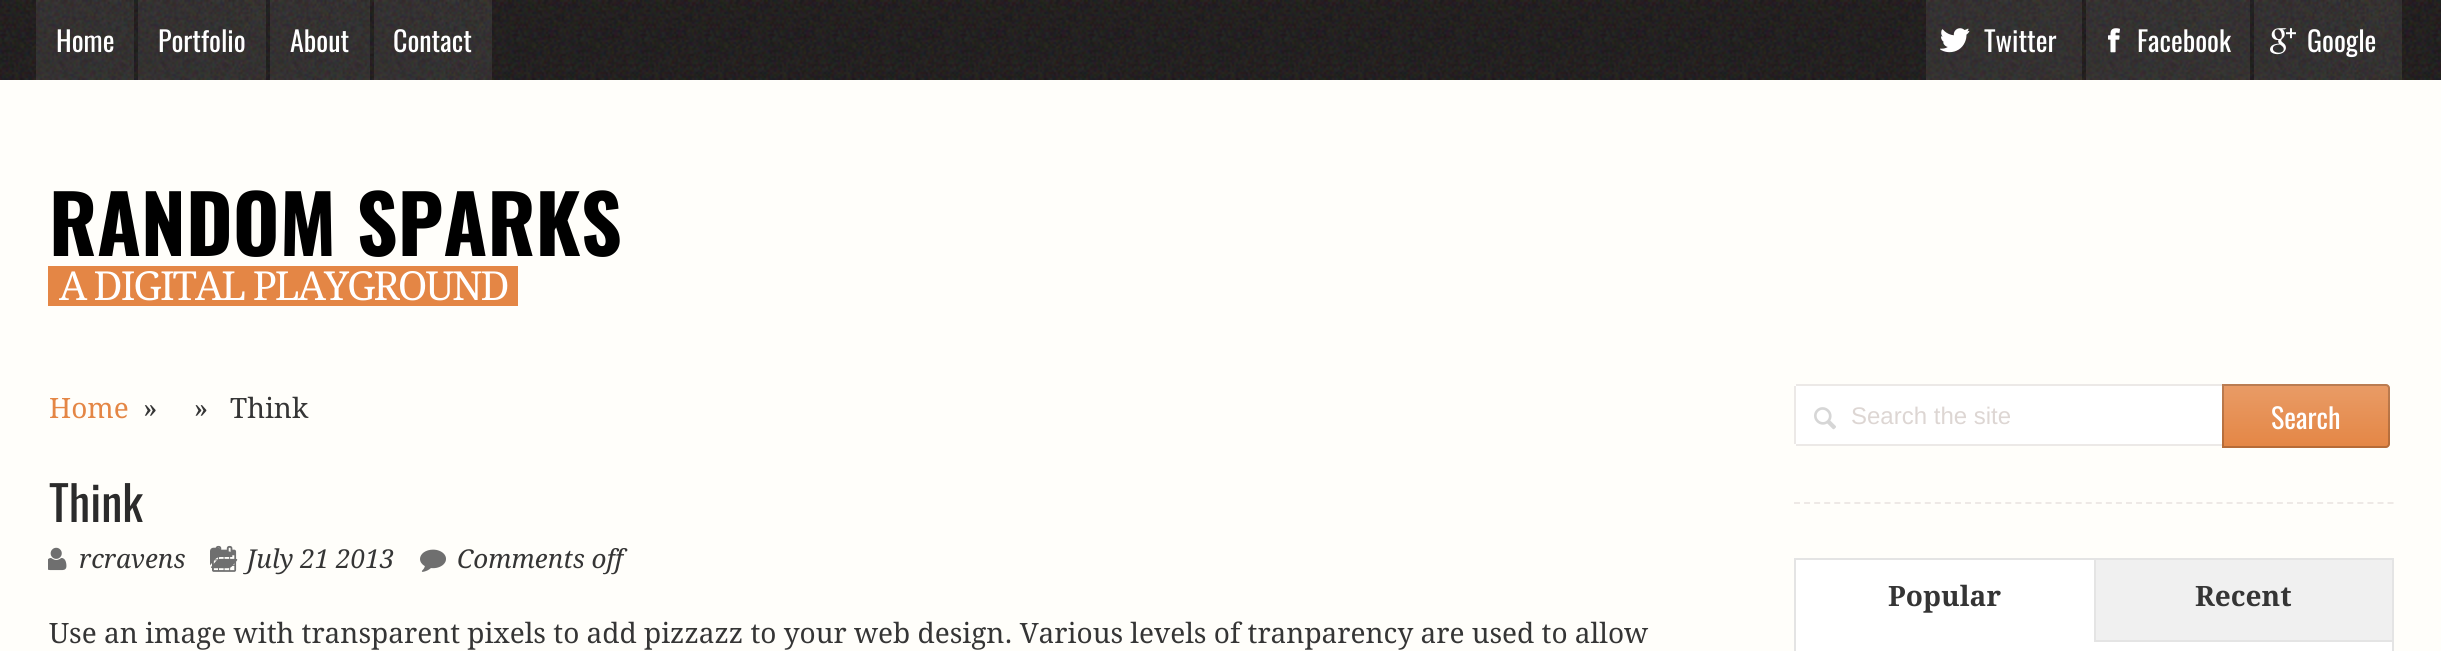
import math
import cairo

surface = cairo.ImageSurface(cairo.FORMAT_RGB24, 2441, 651)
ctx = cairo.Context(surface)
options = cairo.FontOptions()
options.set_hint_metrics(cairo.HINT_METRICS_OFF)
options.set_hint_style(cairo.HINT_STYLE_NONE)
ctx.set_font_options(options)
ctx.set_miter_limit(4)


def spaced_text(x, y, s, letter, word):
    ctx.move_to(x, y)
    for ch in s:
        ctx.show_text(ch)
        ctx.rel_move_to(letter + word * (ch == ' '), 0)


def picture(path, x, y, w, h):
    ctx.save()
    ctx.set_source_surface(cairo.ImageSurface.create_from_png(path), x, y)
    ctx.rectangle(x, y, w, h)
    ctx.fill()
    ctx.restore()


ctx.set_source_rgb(1, 0.996, 0.98)
ctx.paint()
picture("img1.png", 0, 0, 2441, 80)
picture("img2.png", 36, 0, 98, 80)
ctx.select_font_face("Oswald")
ctx.set_font_size(28)
ctx.set_source_rgb(1, 1, 1)
ctx.move_to(56, 52)
ctx.show_text("Home")
picture("img3.png", 138, 0, 128, 80)
ctx.move_to(158, 52)
ctx.show_text("Portfolio")
picture("img4.png", 270, 0, 100, 80)
ctx.move_to(290, 52)
ctx.show_text("About")
picture("img5.png", 374, 0, 118, 80)
ctx.move_to(393, 52)
ctx.show_text("Contact")
picture("img6.png", 1926, 0, 156, 80)
picture("img7.png", 1940, 28, 30, 25)
ctx.move_to(1984, 52)
ctx.show_text("Twitter")
picture("img8.png", 2086, 0, 164, 80)
picture("img9.png", 2108, 28, 12, 25)
ctx.move_to(2137, 52)
ctx.show_text("Facebook")
picture("img10.png", 2254, 0, 148, 80)
picture("img11.png", 2270, 28, 26, 27)
ctx.move_to(2307, 52)
ctx.show_text("Google")
ctx.select_font_face("Oswald", cairo.FONT_SLANT_NORMAL, cairo.FONT_WEIGHT_BOLD)
ctx.set_font_size(80)
ctx.set_source_rgb(0, 0, 0)
ctx.move_to(49, 256)
ctx.show_text("RANDOM SPARKS")
ctx.set_source_rgb(0.894, 0.525, 0.271)
ctx.rectangle(48, 266, 470, 40)
ctx.fill()
ctx.select_font_face("Droid Serif")
ctx.set_font_size(40)
ctx.set_source_rgb(1, 1, 1)
spaced_text(59, 300, "A DIGITAL PLAYGROUND", -2, 0)
ctx.set_font_size(28)
ctx.set_source_rgb(0.894, 0.525, 0.271)
ctx.move_to(49, 418)
ctx.show_text("Home")
ctx.set_source_rgb(0.208, 0.208, 0.208)
ctx.move_to(143, 418)
ctx.show_text("»     »   Think")
ctx.select_font_face("Oswald")
ctx.set_font_size(48)
ctx.set_source_rgb(0.169, 0.169, 0.169)
ctx.move_to(49, 522)
ctx.show_text("Think")
picture("img12.png", 48, 547, 19, 24)
ctx.select_font_face("Droid Serif", cairo.FONT_SLANT_ITALIC)
ctx.set_font_size(26)
ctx.set_source_rgb(0.208, 0.208, 0.208)
ctx.move_to(79, 568)
ctx.show_text("rcravens")
picture("img13.png", 210, 547, 28, 22)
picture("img14.png", 212, 545, 25, 27)
ctx.move_to(247, 568)
ctx.show_text("July 21 2013")
picture("img15.png", 420, 549, 26, 23)
ctx.move_to(457, 568)
ctx.show_text("Comments off")
ctx.select_font_face("Droid Serif")
ctx.set_font_size(28)
ctx.move_to(49, 643)
ctx.show_text("Use an image with transparent pixels to add pizzazz to your web design. Various levels of tranparency are used to allow")
ctx.new_path()
ctx.move_to(1794, 503)
ctx.line_to(2394, 503)
ctx.set_source_rgb(0.933, 0.914, 0.902)
ctx.set_dash([6, 4.06])
ctx.stroke()
ctx.set_source_rgb(1, 1, 1)
ctx.new_path()
ctx.move_to(1798, 384)
ctx.line_to(2222, 384)
ctx.line_to(2222, 446)
ctx.line_to(1798, 446)
ctx.curve_to(1796, 446, 1794, 444, 1794, 442)
ctx.line_to(1794, 388)
ctx.curve_to(1794, 386, 1796, 384, 1798, 384)
ctx.close_path()
ctx.fill()
picture("img16.png", 1814, 407, 22, 23)
ctx.set_source_rgb(0.925, 0.914, 0.906)
ctx.rectangle(1796, 384, 426, 2)
ctx.fill()
ctx.rectangle(1796, 444, 426, 2)
ctx.fill()
ctx.rectangle(1794, 386, 2, 58)
ctx.fill()
ctx.select_font_face("Liberation Sans")
ctx.set_font_size(24)
ctx.set_source_rgb(0.867, 0.839, 0.827)
ctx.move_to(1851, 424)
ctx.show_text("Search the site")
ctx.set_source_rgb(0.894, 0.525, 0.271)
ctx.new_path()
ctx.move_to(2222, 384)
ctx.line_to(2386, 384)
ctx.curve_to(2388, 384, 2390, 386, 2390, 388)
ctx.line_to(2390, 444)
ctx.curve_to(2390, 446, 2388, 448, 2386, 448)
ctx.line_to(2222, 448)
ctx.close_path()
ctx.fill()
gradient = cairo.LinearGradient(2306, 384, 2306, 448)
gradient.add_color_stop_rgba(0, 1, 1, 1, 0.18)
gradient.add_color_stop_rgba(1, 1, 1, 1, 0)
ctx.set_source(gradient)
ctx.new_path()
ctx.move_to(2222, 384)
ctx.line_to(2386, 384)
ctx.curve_to(2388, 384, 2390, 386, 2390, 388)
ctx.line_to(2390, 444)
ctx.curve_to(2390, 446, 2388, 448, 2386, 448)
ctx.line_to(2222, 448)
ctx.close_path()
ctx.fill()
ctx.new_path()
ctx.move_to(2223, 385)
ctx.line_to(2386, 385)
ctx.curve_to(2387.5, 385, 2389, 386.5, 2389, 388)
ctx.line_to(2389, 444)
ctx.curve_to(2389, 445.5, 2387.5, 447, 2386, 447)
ctx.line_to(2223, 447)
ctx.close_path()
ctx.set_source_rgba(0, 0, 0, 0.2)
ctx.set_dash([])
ctx.stroke()
ctx.select_font_face("Oswald")
ctx.set_font_size(28)
ctx.set_source_rgb(1, 1, 1)
ctx.move_to(2271, 429)
ctx.show_text("Search")
ctx.rectangle(1795, 559, 598, 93)
ctx.set_source_rgb(0.894, 0.894, 0.894)
ctx.stroke()
ctx.set_source_rgb(1, 1, 1)
ctx.rectangle(1796, 560, 298, 82)
ctx.fill()
ctx.select_font_face("Droid Serif", cairo.FONT_SLANT_NORMAL, cairo.FONT_WEIGHT_BOLD)
ctx.set_source_rgb(0.208, 0.208, 0.208)
ctx.move_to(1888, 606)
ctx.show_text("Popular")
ctx.set_source_rgb(0.941, 0.941, 0.941)
ctx.rectangle(2096, 560, 296, 80)
ctx.fill()
ctx.set_source_rgb(0.894, 0.894, 0.894)
ctx.rectangle(2094, 640, 298, 2)
ctx.fill()
ctx.rectangle(2094, 560, 2, 82)
ctx.fill()
ctx.set_source_rgb(0.208, 0.208, 0.208)
ctx.move_to(2195, 606)
ctx.show_text("Recent")
ctx.set_source_rgb(1, 1, 1)
ctx.rectangle(1796, 642, 596, 9)
ctx.fill()
surface.write_to_png("page.png")
